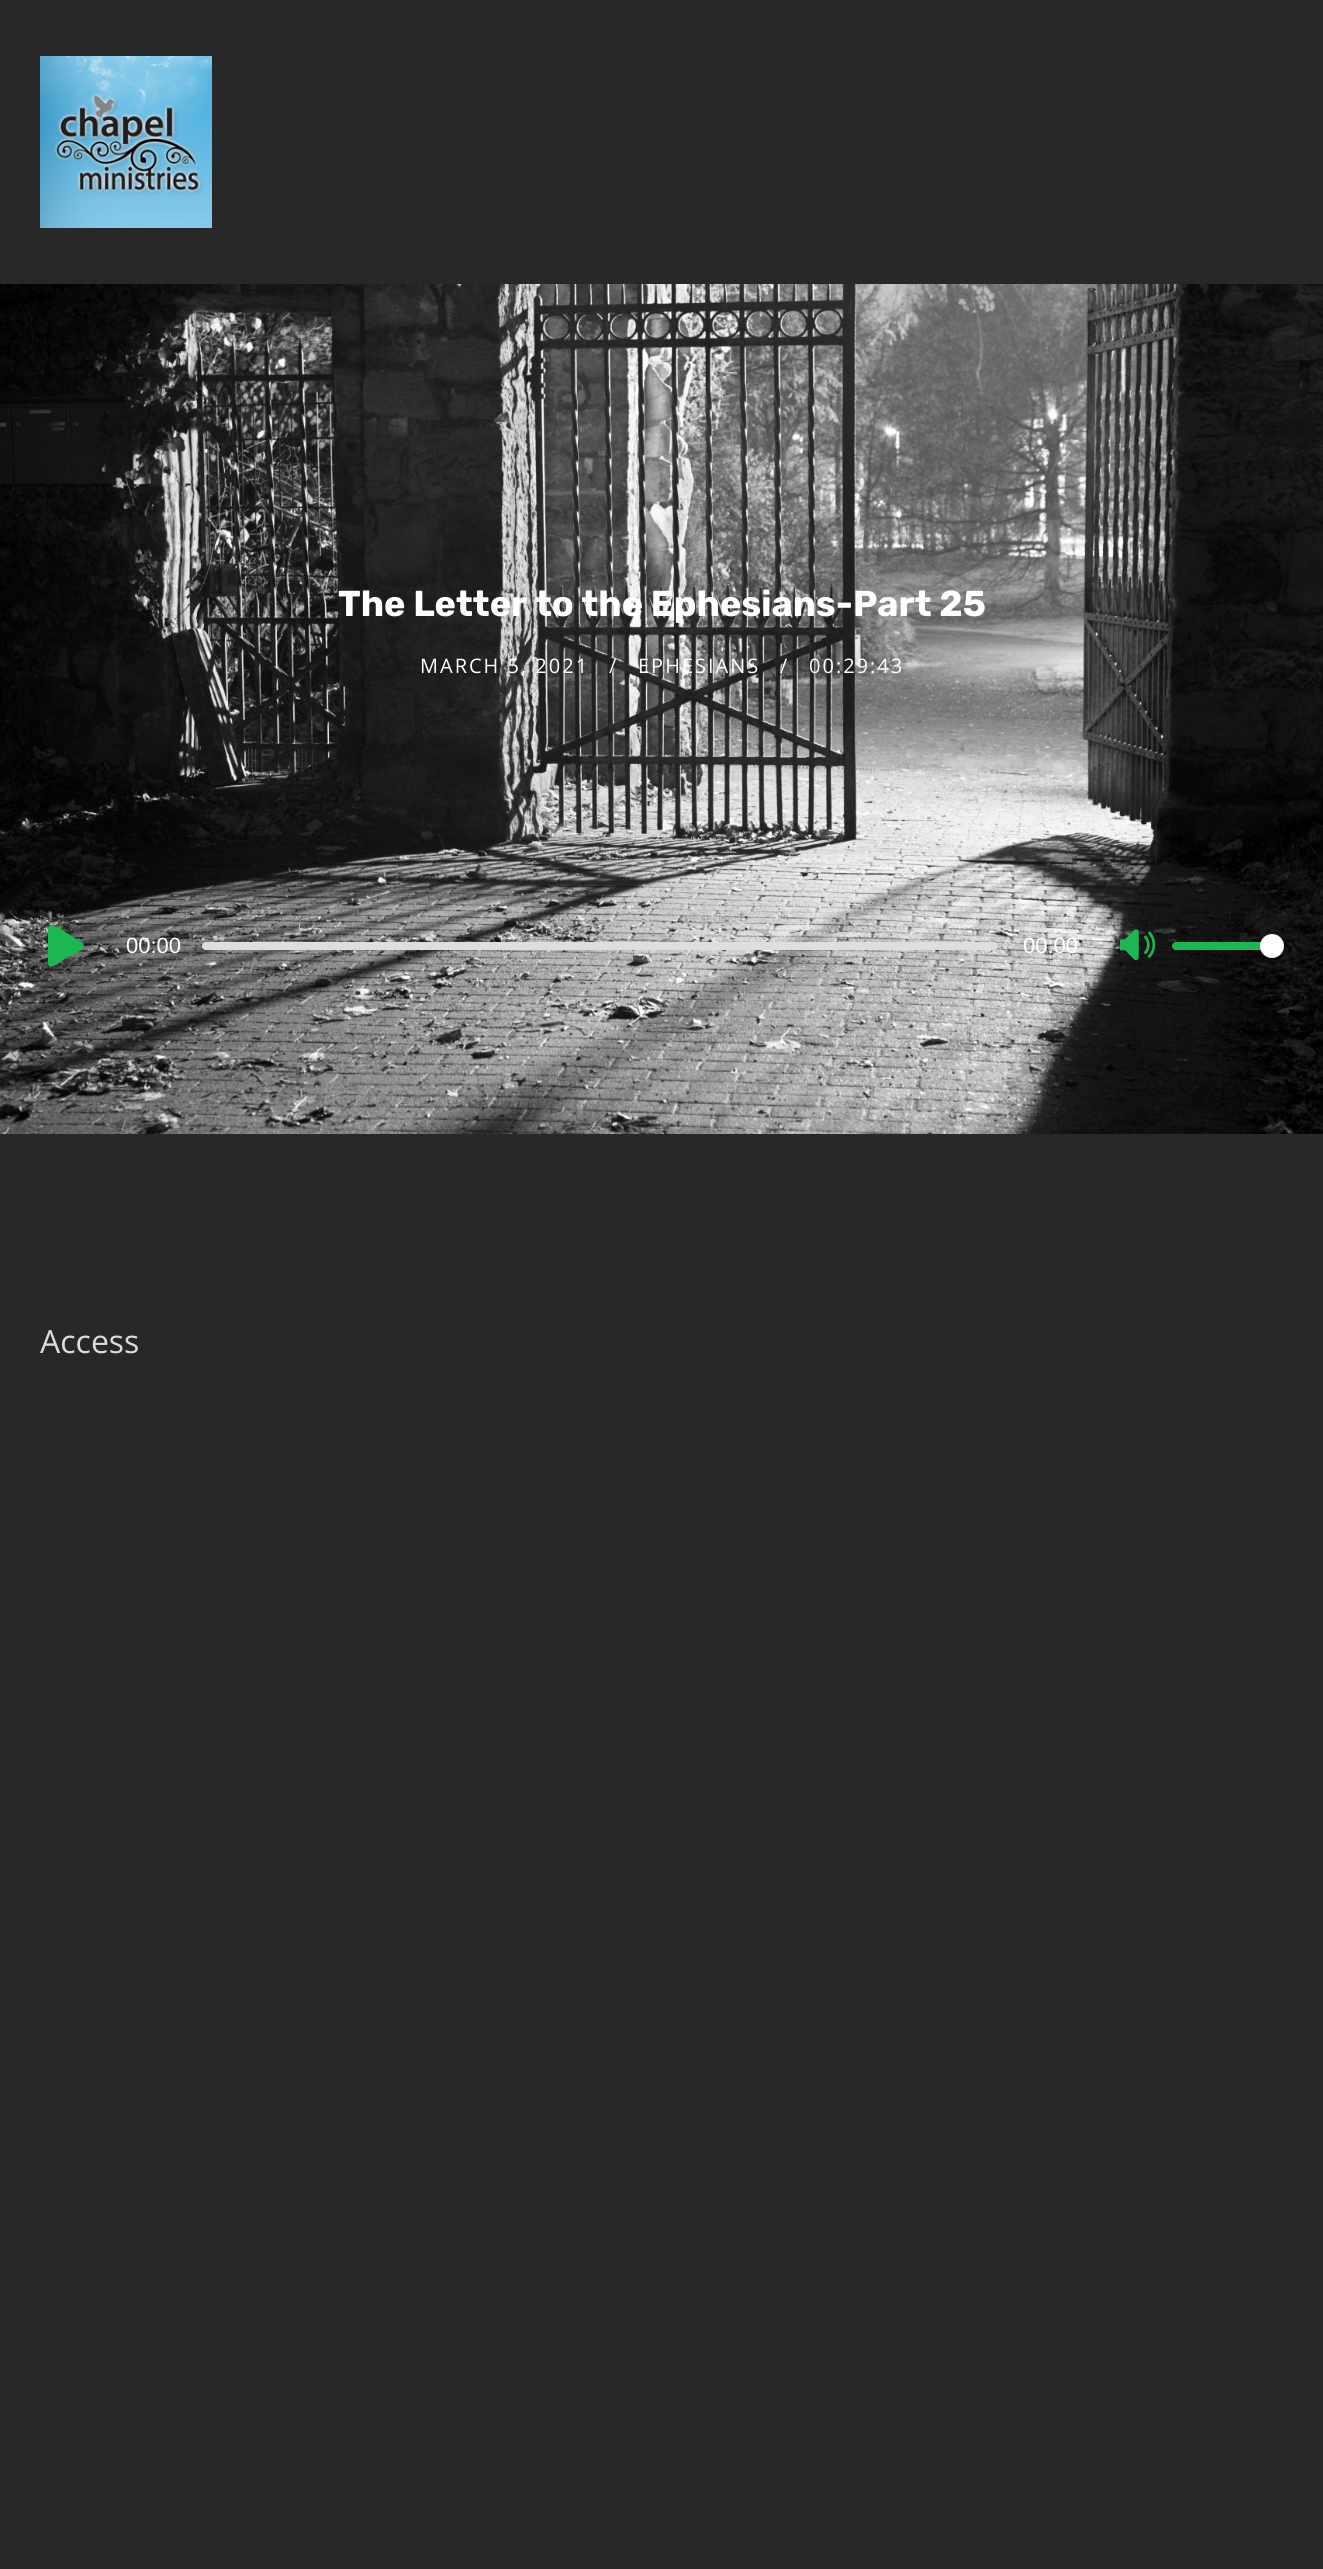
import math
import cairo

surface = cairo.ImageSurface(cairo.FORMAT_RGB24, 1323, 2569)
ctx = cairo.Context(surface)
options = cairo.FontOptions()
options.set_hint_metrics(cairo.HINT_METRICS_OFF)
options.set_hint_style(cairo.HINT_STYLE_NONE)
ctx.set_font_options(options)
ctx.set_miter_limit(4)


def spaced_text(x, y, s, letter, word):
    ctx.move_to(x, y)
    for ch in s:
        ctx.show_text(ch)
        ctx.rel_move_to(letter + word * (ch == ' '), 0)


def round_rect(x, y, w, h, r):
    ctx.new_sub_path()
    for i, (u, v) in enumerate([(x + w - r, y + h - r), (x + r, y + h - r), (x + r, y + r), (x + w - r, y + r)]):
        ctx.arc(u, v, r, i * math.pi / 2, (i + 1) * math.pi / 2)
    ctx.close_path()


def picture(path, x, y, w, h):
    ctx.save()
    ctx.set_source_surface(cairo.ImageSurface.create_from_png(path), x, y)
    ctx.rectangle(x, y, w, h)
    ctx.fill()
    ctx.restore()


ctx.set_source_rgb(0.157, 0.157, 0.157)
ctx.paint()
picture("img1.png", 40, 56, 172, 172)
picture("img2.png", 0, 284, 1323, 850)
ctx.select_font_face("Rubik", cairo.FONT_SLANT_NORMAL, cairo.FONT_WEIGHT_BOLD)
ctx.set_font_size(36)
ctx.set_source_rgb(1, 1, 1)
ctx.move_to(338, 616)
ctx.show_text("The Letter to the Ephesians-Part 25")
ctx.select_font_face("Open Sans")
ctx.set_font_size(20)
spaced_text(420, 673, "MARCH 5, 2021", 2, 0)
spaced_text(609, 673, "/", 2, 0)
spaced_text(638, 673, "EPHESIANS", 2, 0)
spaced_text(780, 673, "/", 2, 0)
spaced_text(809, 673, "00:29:43", 2, 0)
ctx.set_source_rgb(0.11, 0.718, 0.322)
ctx.new_path()
ctx.move_to(48, 963)
ctx.line_to(48, 928)
ctx.curve_to(50, 922, 56, 927, 59, 928)
ctx.line_to(78, 940)
ctx.curve_to(80, 941, 84, 942, 84, 946)
ctx.curve_to(84, 949, 80, 951, 78, 952)
ctx.line_to(63, 960)
ctx.curve_to(62, 961, 48, 972, 48, 963)
ctx.close_path()
ctx.fill()
ctx.select_font_face("Liberation Sans")
ctx.set_font_size(22)
ctx.set_source_rgb(1, 1, 1)
ctx.move_to(126, 953)
ctx.show_text("00:00")
ctx.set_source_rgb(0.871, 0.871, 0.871)
round_rect(202, 942, 796, 8, 4)
ctx.fill()
ctx.set_source_rgb(1, 1, 1)
ctx.move_to(1023, 953)
ctx.show_text("00:00")
picture("img3.png", 1120, 929, 36, 32)
ctx.set_source_rgb(0.11, 0.718, 0.322)
round_rect(1172, 942, 100, 8, 4)
ctx.fill()
ctx.set_source_rgb(1, 1, 1)
ctx.arc(1272, 946, 11, 0, 2 * math.pi)
ctx.fill_preserve()
ctx.stroke()
ctx.select_font_face("Open Sans")
ctx.set_font_size(32)
ctx.set_source_rgb(0.863, 0.863, 0.863)
ctx.move_to(40, 1353)
ctx.show_text("Access")
surface.write_to_png("page.png")
